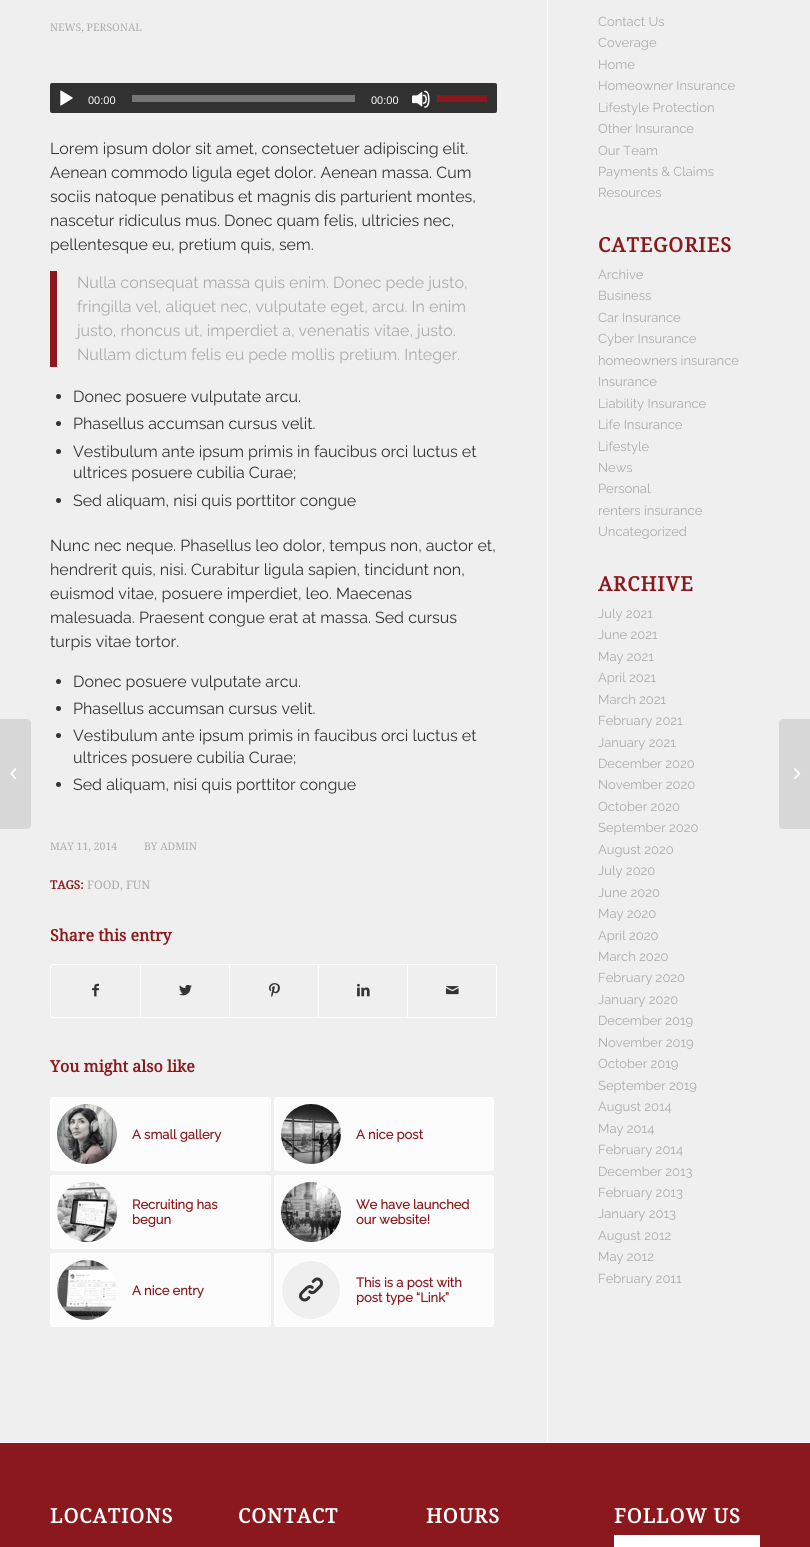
import math
import cairo

surface = cairo.ImageSurface(cairo.FORMAT_RGB24, 810, 1547)
ctx = cairo.Context(surface)
options = cairo.FontOptions()
options.set_hint_metrics(cairo.HINT_METRICS_OFF)
options.set_hint_style(cairo.HINT_STYLE_NONE)
ctx.set_font_options(options)
ctx.set_miter_limit(4)


def spaced_text(x, y, s, letter, word):
    ctx.move_to(x, y)
    for ch in s:
        ctx.show_text(ch)
        ctx.rel_move_to(letter + word * (ch == ' '), 0)


def round_rect(x, y, w, h, r):
    ctx.new_sub_path()
    for i, (u, v) in enumerate([(x + w - r, y + h - r), (x + r, y + h - r), (x + r, y + r), (x + w - r, y + r)]):
        ctx.arc(u, v, r, i * math.pi / 2, (i + 1) * math.pi / 2)
    ctx.close_path()


def picture(path, x, y, w, h):
    ctx.save()
    ctx.set_source_surface(cairo.ImageSurface.create_from_png(path), x, y)
    ctx.rectangle(x, y, w, h)
    ctx.fill()
    ctx.restore()


ctx.set_source_rgb(0.937, 0.937, 0.937)
ctx.paint()
ctx.set_source_rgb(0.843, 0.843, 0.843)
ctx.new_path()
ctx.move_to(0, 719)
ctx.line_to(27, 719)
ctx.curve_to(29, 719, 31, 721, 31, 723)
ctx.line_to(31, 825)
ctx.curve_to(31, 827, 29, 829, 27, 829)
ctx.line_to(0, 829)
ctx.close_path()
ctx.fill()
picture("img1.png", 10, 768, 7, 11)
ctx.set_source_rgb(1, 1, 1)
ctx.rectangle(547, 0, 1, 1442)
ctx.fill()
ctx.select_font_face("Droid Serif")
ctx.set_font_size(10.5)
ctx.set_source_rgb(0.671, 0.671, 0.671)
ctx.move_to(50, 31)
ctx.show_text("NEWS, PERSONAL")
ctx.set_source_rgb(0.192, 0.192, 0.192)
round_rect(50, 83, 447, 30, 2)
ctx.fill()
picture("img2.png", 60, 90, 13, 16)
ctx.select_font_face("Liberation Sans")
ctx.set_font_size(11)
ctx.set_source_rgb(1, 1, 1)
ctx.move_to(88, 104)
ctx.show_text("00:00")
ctx.set_source_rgb(0.459, 0.459, 0.459)
ctx.rectangle(132, 95, 223, 7)
ctx.fill()
ctx.set_source_rgb(1, 1, 1)
ctx.move_to(371, 104)
ctx.show_text("00:00")
picture("img3.png", 412, 90, 18, 18)
ctx.set_source_rgb(0.541, 0.094, 0.11)
ctx.rectangle(437, 95, 50, 7)
ctx.fill()
ctx.select_font_face("Raleway Thin")
ctx.set_font_size(16)
ctx.set_source_rgb(0.2, 0.2, 0.2)
ctx.move_to(50, 154)
ctx.show_text("Lorem ipsum dolor sit amet, consectetuer adipiscing elit.")
ctx.move_to(50, 178)
ctx.show_text("Aenean commodo ligula eget dolor. Aenean massa. Cum")
ctx.move_to(50, 202)
ctx.show_text("sociis natoque penatibus et magnis dis parturient montes,")
ctx.move_to(50, 226)
ctx.show_text("nascetur ridiculus mus. Donec quam felis, ultricies nec,")
ctx.move_to(50, 250)
ctx.show_text("pellentesque eu, pretium quis, sem.")
ctx.set_source_rgb(0.541, 0.094, 0.11)
ctx.rectangle(50, 271, 7, 96)
ctx.fill()
ctx.set_source_rgb(0.671, 0.671, 0.671)
ctx.move_to(77, 288)
ctx.show_text("Nulla consequat massa quis enim. Donec pede justo,")
ctx.move_to(77, 312)
ctx.show_text("fringilla vel, aliquet nec, vulputate eget, arcu. In enim")
ctx.move_to(77, 336)
ctx.show_text("justo, rhoncus ut, imperdiet a, venenatis vitae, justo.")
ctx.move_to(77, 360)
ctx.show_text("Nullam dictum felis eu pede mollis pretium. Integer.")
ctx.set_source_rgb(0.2, 0.2, 0.2)
ctx.new_path()
ctx.arc(58.5, 396.5, 2.5, 0, 2 * math.pi)
ctx.fill()
ctx.move_to(73, 402)
ctx.show_text("Donec posuere vulputate arcu.")
ctx.new_path()
ctx.arc(58.5, 423.5, 2.5, 0, 2 * math.pi)
ctx.fill()
ctx.move_to(73, 429)
ctx.show_text("Phasellus accumsan cursus velit.")
ctx.new_path()
ctx.arc(58.5, 451.5, 2.5, 0, 2 * math.pi)
ctx.fill()
ctx.move_to(73, 457)
ctx.show_text("Vestibulum ante ipsum primis in faucibus orci luctus et")
ctx.move_to(73, 478)
ctx.show_text("ultrices posuere cubilia Curae;")
ctx.new_path()
ctx.arc(58.5, 500.5, 2.5, 0, 2 * math.pi)
ctx.fill()
ctx.move_to(73, 506)
ctx.show_text("Sed aliquam, nisi quis porttitor congue")
ctx.move_to(50, 551)
ctx.show_text("Nunc nec neque. Phasellus leo dolor, tempus non, auctor et,")
ctx.move_to(50, 575)
ctx.show_text("hendrerit quis, nisi. Curabitur ligula sapien, tincidunt non,")
ctx.move_to(50, 599)
ctx.show_text("euismod vitae, posuere imperdiet, leo. Maecenas")
ctx.move_to(50, 623)
ctx.show_text("malesuada. Praesent congue erat at massa. Sed cursus")
ctx.move_to(50, 647)
ctx.show_text("turpis vitae tortor.")
ctx.new_path()
ctx.arc(58.5, 681.5, 2.5, 0, 2 * math.pi)
ctx.fill()
ctx.move_to(73, 687)
ctx.show_text("Donec posuere vulputate arcu.")
ctx.new_path()
ctx.arc(58.5, 708.5, 2.5, 0, 2 * math.pi)
ctx.fill()
ctx.move_to(73, 714)
ctx.show_text("Phasellus accumsan cursus velit.")
ctx.new_path()
ctx.arc(58.5, 735.5, 2.5, 0, 2 * math.pi)
ctx.fill()
ctx.move_to(73, 741)
ctx.show_text("Vestibulum ante ipsum primis in faucibus orci luctus et")
ctx.move_to(73, 763)
ctx.show_text("ultrices posuere cubilia Curae;")
ctx.new_path()
ctx.arc(58.5, 784.5, 2.5, 0, 2 * math.pi)
ctx.fill()
ctx.move_to(73, 790)
ctx.show_text("Sed aliquam, nisi quis porttitor congue")
ctx.select_font_face("Droid Serif")
ctx.set_font_size(10.5)
ctx.set_source_rgb(0.671, 0.671, 0.671)
ctx.move_to(50, 850)
ctx.show_text("MAY 11, 2014")
ctx.move_to(144, 850)
ctx.show_text("BY ADMIN")
ctx.select_font_face("Droid Serif", cairo.FONT_SLANT_NORMAL, cairo.FONT_WEIGHT_BOLD)
ctx.set_font_size(11.75)
ctx.set_source_rgb(0.541, 0.094, 0.11)
ctx.move_to(50, 889)
ctx.show_text("TAGS:")
ctx.select_font_face("Droid Serif")
ctx.set_source_rgb(0.671, 0.671, 0.671)
ctx.move_to(87, 889)
ctx.show_text("FOOD, FUN")
ctx.select_font_face("Droid Serif", cairo.FONT_SLANT_NORMAL, cairo.FONT_WEIGHT_BOLD)
ctx.set_font_size(16)
ctx.set_source_rgb(0.541, 0.094, 0.11)
ctx.move_to(50, 941)
ctx.show_text("Share this entry")
round_rect(50.5, 964.5, 446, 53, 2.5)
ctx.set_source_rgb(1, 1, 1)
ctx.set_line_width(1)
ctx.stroke()
picture("img4.png", 92, 983, 7, 14)
ctx.rectangle(140, 965, 1, 52)
ctx.fill()
picture("img5.png", 179, 984, 13, 12)
ctx.rectangle(229, 965, 1, 52)
ctx.fill()
picture("img6.png", 269, 983, 11, 14)
ctx.rectangle(318, 965, 1, 52)
ctx.fill()
picture("img7.png", 357, 983, 13, 14)
ctx.rectangle(407, 965, 1, 52)
ctx.fill()
picture("img8.png", 446, 986, 13, 9)
ctx.set_source_rgb(0.541, 0.094, 0.11)
ctx.move_to(50, 1072)
ctx.show_text("You might also like")
ctx.set_source_rgb(0.988, 0.988, 0.988)
round_rect(50.5, 1097.5, 220, 73, 2.5)
ctx.fill_preserve()
ctx.set_source_rgb(1, 1, 1)
ctx.stroke()
picture("img9.png", 57, 1104, 60, 60)
ctx.select_font_face("Raleway", cairo.FONT_SLANT_NORMAL, cairo.FONT_WEIGHT_BOLD)
ctx.set_font_size(13)
ctx.set_source_rgb(0.541, 0.094, 0.11)
ctx.move_to(132, 1139)
ctx.show_text("A small gallery")
ctx.set_source_rgb(0.988, 0.988, 0.988)
round_rect(274.5, 1097.5, 219, 73, 2.5)
ctx.fill_preserve()
ctx.set_source_rgb(1, 1, 1)
ctx.stroke()
picture("img10.png", 281, 1104, 60, 60)
ctx.set_source_rgb(0.541, 0.094, 0.11)
ctx.move_to(356, 1139)
ctx.show_text("A nice post")
ctx.set_source_rgb(0.988, 0.988, 0.988)
round_rect(50.5, 1175.5, 220, 73, 2.5)
ctx.fill_preserve()
ctx.set_source_rgb(1, 1, 1)
ctx.stroke()
picture("img11.png", 57, 1182, 60, 60)
ctx.set_source_rgb(0.541, 0.094, 0.11)
ctx.move_to(132, 1209)
ctx.show_text("Recruiting has")
ctx.move_to(132, 1224)
ctx.show_text("begun")
ctx.set_source_rgb(0.988, 0.988, 0.988)
round_rect(274.5, 1175.5, 219, 73, 2.5)
ctx.fill_preserve()
ctx.set_source_rgb(1, 1, 1)
ctx.stroke()
picture("img12.png", 281, 1182, 60, 60)
ctx.set_source_rgb(0.541, 0.094, 0.11)
ctx.move_to(356, 1209)
ctx.show_text("We have launched")
ctx.move_to(356, 1224)
ctx.show_text("our website!")
ctx.set_source_rgb(0.988, 0.988, 0.988)
round_rect(50.5, 1253.5, 220, 73, 2.5)
ctx.fill_preserve()
ctx.set_source_rgb(1, 1, 1)
ctx.stroke()
picture("img13.png", 57, 1260, 60, 60)
ctx.set_source_rgb(0.541, 0.094, 0.11)
ctx.move_to(132, 1295)
ctx.show_text("A nice entry")
ctx.set_source_rgb(0.988, 0.988, 0.988)
round_rect(274.5, 1253.5, 219, 73, 2.5)
ctx.fill_preserve()
ctx.set_source_rgb(1, 1, 1)
ctx.stroke()
ctx.arc(311, 1290, 29.5, 0, 2 * math.pi)
ctx.stroke()
ctx.set_source_rgb(0.937, 0.937, 0.937)
ctx.arc(311, 1290, 29, 0, 2 * math.pi)
ctx.fill()
picture("img14.png", 299, 1277, 24, 25)
ctx.set_source_rgb(0.541, 0.094, 0.11)
ctx.move_to(356, 1287)
ctx.show_text("This is a post with")
ctx.move_to(356, 1302)
ctx.show_text("post type “Link”")
ctx.select_font_face("Raleway Thin")
ctx.set_source_rgb(0.671, 0.671, 0.671)
ctx.move_to(598, 26)
ctx.show_text("Contact Us")
ctx.move_to(598, 47)
ctx.show_text("Coverage")
ctx.move_to(598, 69)
ctx.show_text("Home")
ctx.move_to(598, 90)
ctx.show_text("Homeowner Insurance")
ctx.move_to(598, 112)
ctx.show_text("Lifestyle Protection")
ctx.move_to(598, 133)
ctx.show_text("Other Insurance")
ctx.move_to(598, 155)
ctx.show_text("Our Team")
ctx.move_to(598, 176)
ctx.show_text("Payments & Claims")
ctx.move_to(598, 197)
ctx.show_text("Resources")
ctx.select_font_face("Droid Serif", cairo.FONT_SLANT_NORMAL, cairo.FONT_WEIGHT_BOLD)
ctx.set_font_size(20)
ctx.set_source_rgb(0.541, 0.094, 0.11)
spaced_text(598, 252, "CATEGORIES", 1, 0)
ctx.select_font_face("Raleway Thin")
ctx.set_font_size(13)
ctx.set_source_rgb(0.671, 0.671, 0.671)
ctx.move_to(598, 279)
ctx.show_text("Archive")
ctx.move_to(598, 300)
ctx.show_text("Business")
ctx.move_to(598, 322)
ctx.show_text("Car Insurance")
ctx.move_to(598, 343)
ctx.show_text("Cyber Insurance")
ctx.move_to(598, 365)
ctx.show_text("homeowners insurance")
ctx.move_to(598, 386)
ctx.show_text("Insurance")
ctx.move_to(598, 408)
ctx.show_text("Liability Insurance")
ctx.move_to(598, 429)
ctx.show_text("Life Insurance")
ctx.move_to(598, 451)
ctx.show_text("Lifestyle")
ctx.move_to(598, 472)
ctx.show_text("News")
ctx.move_to(598, 493)
ctx.show_text("Personal")
ctx.move_to(598, 515)
ctx.show_text("renters insurance")
ctx.move_to(598, 536)
ctx.show_text("Uncategorized")
ctx.select_font_face("Droid Serif", cairo.FONT_SLANT_NORMAL, cairo.FONT_WEIGHT_BOLD)
ctx.set_font_size(20)
ctx.set_source_rgb(0.541, 0.094, 0.11)
spaced_text(598, 591, "ARCHIVE", 1, 0)
ctx.select_font_face("Raleway Thin")
ctx.set_font_size(13)
ctx.set_source_rgb(0.671, 0.671, 0.671)
ctx.move_to(598, 618)
ctx.show_text("July 2021")
ctx.move_to(598, 639)
ctx.show_text("June 2021")
ctx.move_to(598, 661)
ctx.show_text("May 2021")
ctx.move_to(598, 682)
ctx.show_text("April 2021")
ctx.move_to(598, 704)
ctx.show_text("March 2021")
ctx.move_to(598, 725)
ctx.show_text("February 2021")
ctx.move_to(598, 747)
ctx.show_text("January 2021")
ctx.move_to(598, 768)
ctx.show_text("December 2020")
ctx.move_to(598, 789)
ctx.show_text("November 2020")
ctx.move_to(598, 811)
ctx.show_text("October 2020")
ctx.move_to(598, 832)
ctx.show_text("September 2020")
ctx.move_to(598, 854)
ctx.show_text("August 2020")
ctx.move_to(598, 875)
ctx.show_text("July 2020")
ctx.move_to(598, 897)
ctx.show_text("June 2020")
ctx.move_to(598, 918)
ctx.show_text("May 2020")
ctx.move_to(598, 940)
ctx.show_text("April 2020")
ctx.move_to(598, 961)
ctx.show_text("March 2020")
ctx.move_to(598, 982)
ctx.show_text("February 2020")
ctx.move_to(598, 1004)
ctx.show_text("January 2020")
ctx.move_to(598, 1025)
ctx.show_text("December 2019")
ctx.move_to(598, 1047)
ctx.show_text("November 2019")
ctx.move_to(598, 1068)
ctx.show_text("October 2019")
ctx.move_to(598, 1090)
ctx.show_text("September 2019")
ctx.move_to(598, 1111)
ctx.show_text("August 2014")
ctx.move_to(598, 1133)
ctx.show_text("May 2014")
ctx.move_to(598, 1154)
ctx.show_text("February 2014")
ctx.move_to(598, 1176)
ctx.show_text("December 2013")
ctx.move_to(598, 1197)
ctx.show_text("February 2013")
ctx.move_to(598, 1218)
ctx.show_text("January 2013")
ctx.move_to(598, 1240)
ctx.show_text("August 2012")
ctx.move_to(598, 1261)
ctx.show_text("May 2012")
ctx.move_to(598, 1283)
ctx.show_text("February 2011")
ctx.set_source_rgb(0.541, 0.094, 0.11)
ctx.rectangle(0, 1443, 810, 104)
ctx.fill()
ctx.set_source_rgb(1, 1, 1)
ctx.rectangle(0, 1442, 810, 1)
ctx.fill()
ctx.select_font_face("Droid Serif", cairo.FONT_SLANT_NORMAL, cairo.FONT_WEIGHT_BOLD)
ctx.set_font_size(20)
spaced_text(50, 1523, "LOCATIONS", 1, 0)
spaced_text(238, 1523, "CONTACT", 1, 0)
spaced_text(426, 1523, "HOURS", 1, 0)
spaced_text(614, 1523, "FOLLOW US", 1, 0)
ctx.rectangle(614, 1535, 146, 12)
ctx.fill()
ctx.set_source_rgb(0.843, 0.843, 0.843)
ctx.new_path()
ctx.move_to(783, 719)
ctx.line_to(810, 719)
ctx.line_to(810, 829)
ctx.line_to(783, 829)
ctx.curve_to(781, 829, 779, 827, 779, 825)
ctx.line_to(779, 723)
ctx.curve_to(779, 721, 781, 719, 783, 719)
ctx.close_path()
ctx.fill()
picture("img15.png", 794, 768, 7, 11)
surface.write_to_png("page.png")
